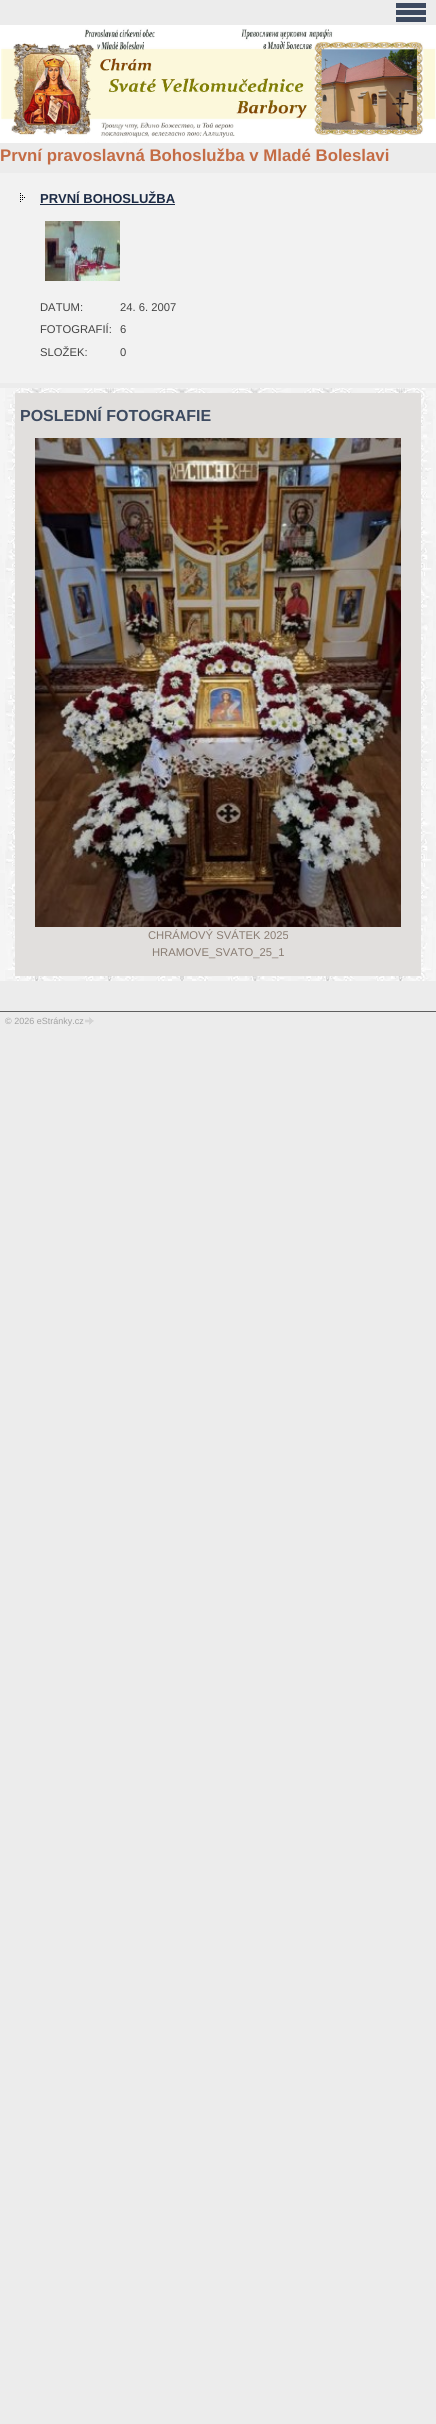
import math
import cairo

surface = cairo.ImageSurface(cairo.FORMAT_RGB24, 436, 2424)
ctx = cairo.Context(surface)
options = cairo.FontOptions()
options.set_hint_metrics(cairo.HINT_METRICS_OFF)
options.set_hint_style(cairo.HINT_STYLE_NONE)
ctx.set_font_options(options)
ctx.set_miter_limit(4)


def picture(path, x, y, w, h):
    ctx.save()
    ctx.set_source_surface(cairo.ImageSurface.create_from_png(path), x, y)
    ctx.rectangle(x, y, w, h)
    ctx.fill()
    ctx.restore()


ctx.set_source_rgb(0.922, 0.922, 0.922)
ctx.paint()
picture("img1.png", 0, 388, 436, 593)
ctx.set_source_rgb(0.239, 0.29, 0.376)
ctx.rectangle(396, 3, 30, 5)
ctx.fill()
ctx.rectangle(396, 10, 30, 5)
ctx.fill()
ctx.rectangle(396, 17, 30, 5)
ctx.fill()
picture("img2.png", 0, 25, 436, 118)
ctx.select_font_face("Liberation Sans", cairo.FONT_SLANT_NORMAL, cairo.FONT_WEIGHT_BOLD)
ctx.set_font_size(16.8)
ctx.set_source_rgb(0.769, 0.424, 0.271)
ctx.move_to(0, 161)
ctx.show_text("První pravoslavná Bohoslužba v Mladé Boleslavi")
ctx.set_source_rgb(0.949, 0.949, 0.949)
ctx.rectangle(0, 173, 436, 210)
ctx.fill()
picture("img3.png", 20, 193, 5, 9)
ctx.set_font_size(13)
ctx.set_source_rgb(0.114, 0.173, 0.275)
ctx.move_to(40, 203)
ctx.show_text("PRVNÍ BOHOSLUŽBA")
ctx.rectangle(40, 204, 135, 1)
ctx.fill()
ctx.select_font_face("Liberation Sans")
ctx.set_font_size(11.25)
ctx.set_source_rgb(0.267, 0.267, 0.267)
ctx.move_to(40, 311)
ctx.show_text("DATUM:")
ctx.move_to(120, 311)
ctx.show_text("24. 6. 2007")
ctx.move_to(40, 333)
ctx.show_text("FOTOGRAFIÍ:")
ctx.move_to(120, 333)
ctx.show_text("6")
ctx.move_to(40, 356)
ctx.show_text("SLOŽEK:")
ctx.move_to(120, 356)
ctx.show_text("0")
picture("img4.png", 45, 221, 75, 60)
picture("img5.png", 5, 388, 428, 593)
ctx.set_source_rgb(0.882, 0.875, 0.867)
ctx.rectangle(15, 393, 406, 583)
ctx.fill()
ctx.select_font_face("Liberation Sans", cairo.FONT_SLANT_NORMAL, cairo.FONT_WEIGHT_BOLD)
ctx.set_font_size(16)
ctx.set_source_rgb(0.239, 0.29, 0.376)
ctx.move_to(20, 421)
ctx.show_text("POSLEDNÍ FOTOGRAFIE")
picture("img6.png", 35, 438, 366, 489)
ctx.select_font_face("Liberation Sans")
ctx.set_font_size(11.25)
ctx.set_source_rgb(0.537, 0.486, 0.447)
ctx.move_to(148, 939)
ctx.show_text("CHRÁMOVÝ SVÁTEK 2025")
ctx.move_to(152, 956)
ctx.show_text("HRAMOVE_SVATO_25_1")
ctx.set_source_rgb(0.373, 0.373, 0.373)
ctx.rectangle(0, 1011, 436, 1)
ctx.fill()
ctx.set_font_size(9)
ctx.set_source_rgb(0.631, 0.631, 0.631)
ctx.move_to(5, 1024)
ctx.show_text("© 2026 eStránky.cz")
picture("img7.png", 85, 1017, 9, 8)
surface.write_to_png("page.png")
